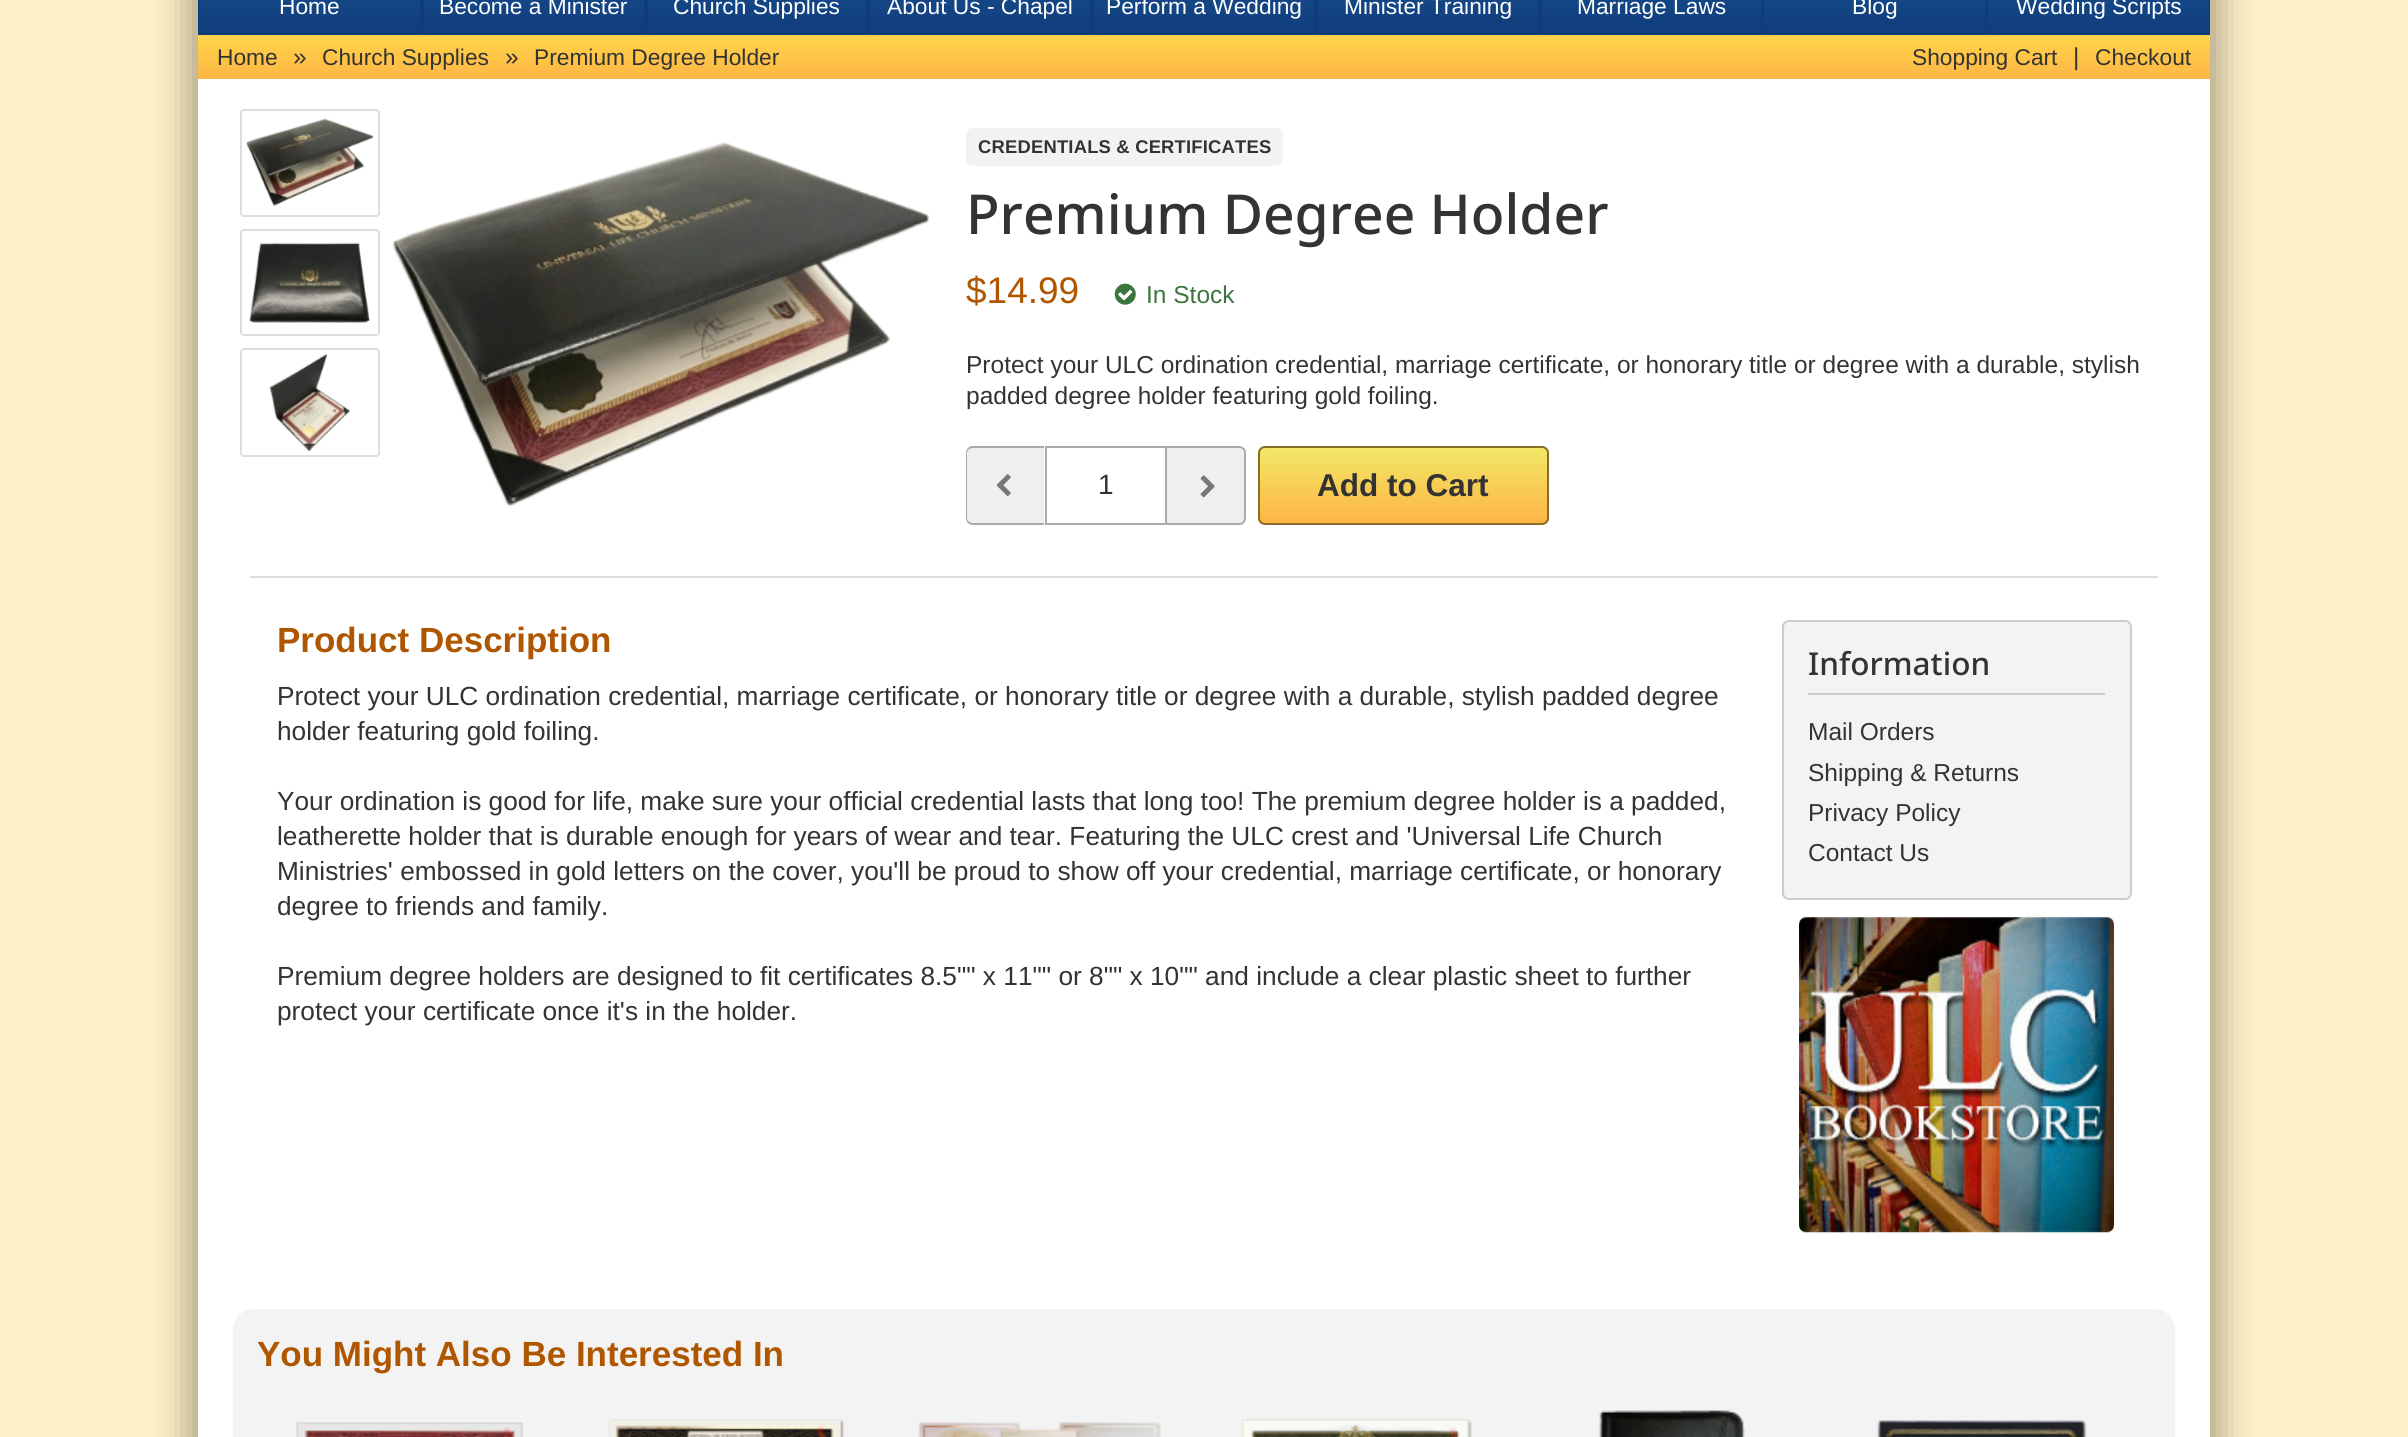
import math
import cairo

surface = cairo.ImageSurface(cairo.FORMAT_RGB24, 2408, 1437)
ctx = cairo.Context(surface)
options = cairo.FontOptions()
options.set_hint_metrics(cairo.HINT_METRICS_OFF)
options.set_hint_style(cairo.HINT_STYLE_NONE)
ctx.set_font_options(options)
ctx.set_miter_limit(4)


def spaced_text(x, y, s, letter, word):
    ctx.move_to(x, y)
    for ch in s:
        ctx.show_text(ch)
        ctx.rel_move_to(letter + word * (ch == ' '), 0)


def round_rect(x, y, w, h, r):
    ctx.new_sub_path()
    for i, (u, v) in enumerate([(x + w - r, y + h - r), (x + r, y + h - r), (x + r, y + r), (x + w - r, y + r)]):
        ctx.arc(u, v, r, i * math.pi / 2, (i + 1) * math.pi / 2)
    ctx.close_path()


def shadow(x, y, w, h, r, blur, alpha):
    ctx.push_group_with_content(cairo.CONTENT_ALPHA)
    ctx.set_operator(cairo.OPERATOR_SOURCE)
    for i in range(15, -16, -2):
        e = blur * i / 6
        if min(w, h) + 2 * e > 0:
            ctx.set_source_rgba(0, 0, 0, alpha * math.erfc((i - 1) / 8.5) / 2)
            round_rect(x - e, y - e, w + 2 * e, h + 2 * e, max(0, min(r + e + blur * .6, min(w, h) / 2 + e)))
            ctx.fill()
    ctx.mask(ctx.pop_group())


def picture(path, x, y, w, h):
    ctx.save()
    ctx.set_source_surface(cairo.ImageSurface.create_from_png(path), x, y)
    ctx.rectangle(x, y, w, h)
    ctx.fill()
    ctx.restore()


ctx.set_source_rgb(1, 0.937, 0.776)
ctx.paint()
ctx.set_source_rgb(0, 0, 0)
shadow(189, -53, 2030, 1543, 0, 17.5, 0.35)
gradient = cairo.LinearGradient(310, -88, 310, 35)
gradient.add_color_stop_rgba(0, 0.118, 0.38, 0.624, 1)
gradient.add_color_stop_rgba(1, 0.063, 0.235, 0.482, 1)
ctx.set_source(gradient)
ctx.rectangle(200, 0, 220, 35)
ctx.fill()
ctx.set_source_rgb(0.063, 0.235, 0.482)
ctx.rectangle(420, 0, 4, 35)
ctx.fill()
ctx.rectangle(198, 0, 2, 35)
ctx.fill()
ctx.select_font_face("Liberation Sans")
ctx.set_font_size(22.75)
ctx.set_source_rgb(1, 1, 1)
ctx.move_to(279, 14)
ctx.show_text("Home")
gradient = cairo.LinearGradient(534, -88, 534, 35)
gradient.add_color_stop_rgba(0, 0.118, 0.38, 0.624, 1)
gradient.add_color_stop_rgba(1, 0.063, 0.235, 0.482, 1)
ctx.set_source(gradient)
ctx.rectangle(424, 0, 220, 35)
ctx.fill()
ctx.set_source_rgb(0.063, 0.235, 0.482)
ctx.rectangle(644, 0, 4, 35)
ctx.fill()
ctx.set_source_rgb(1, 1, 1)
ctx.move_to(439, 14)
ctx.show_text("Become a Minister")
gradient = cairo.LinearGradient(757, -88, 757, 35)
gradient.add_color_stop_rgba(0, 0.118, 0.38, 0.624, 1)
gradient.add_color_stop_rgba(1, 0.063, 0.235, 0.482, 1)
ctx.set_source(gradient)
ctx.rectangle(648, 0, 218, 35)
ctx.fill()
ctx.set_source_rgb(0.063, 0.235, 0.482)
ctx.rectangle(866, 0, 4, 35)
ctx.fill()
ctx.set_source_rgb(1, 1, 1)
ctx.move_to(673, 14)
ctx.show_text("Church Supplies")
gradient = cairo.LinearGradient(980, -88, 980, 35)
gradient.add_color_stop_rgba(0, 0.118, 0.38, 0.624, 1)
gradient.add_color_stop_rgba(1, 0.063, 0.235, 0.482, 1)
ctx.set_source(gradient)
ctx.rectangle(870, 0, 220, 35)
ctx.fill()
ctx.set_source_rgb(0.063, 0.235, 0.482)
ctx.rectangle(1090, 0, 4, 35)
ctx.fill()
ctx.set_source_rgb(1, 1, 1)
ctx.move_to(887, 14)
ctx.show_text("About Us - Chapel")
gradient = cairo.LinearGradient(1204, -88, 1204, 35)
gradient.add_color_stop_rgba(0, 0.118, 0.38, 0.624, 1)
gradient.add_color_stop_rgba(1, 0.063, 0.235, 0.482, 1)
ctx.set_source(gradient)
ctx.rectangle(1094, 0, 220, 35)
ctx.fill()
ctx.set_source_rgb(0.063, 0.235, 0.482)
ctx.rectangle(1314, 0, 4, 35)
ctx.fill()
ctx.set_source_rgb(1, 1, 1)
ctx.move_to(1106, 14)
ctx.show_text("Perform a Wedding")
gradient = cairo.LinearGradient(1428, -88, 1428, 35)
gradient.add_color_stop_rgba(0, 0.118, 0.38, 0.624, 1)
gradient.add_color_stop_rgba(1, 0.063, 0.235, 0.482, 1)
ctx.set_source(gradient)
ctx.rectangle(1318, 0, 220, 35)
ctx.fill()
ctx.set_source_rgb(0.063, 0.235, 0.482)
ctx.rectangle(1538, 0, 4, 35)
ctx.fill()
ctx.set_source_rgb(1, 1, 1)
ctx.move_to(1344, 14)
ctx.show_text("Minister Training")
gradient = cairo.LinearGradient(1651, -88, 1651, 35)
gradient.add_color_stop_rgba(0, 0.118, 0.38, 0.624, 1)
gradient.add_color_stop_rgba(1, 0.063, 0.235, 0.482, 1)
ctx.set_source(gradient)
ctx.rectangle(1542, 0, 219, 35)
ctx.fill()
ctx.set_source_rgb(0.063, 0.235, 0.482)
ctx.rectangle(1761, 0, 3, 35)
ctx.fill()
ctx.set_source_rgb(1, 1, 1)
ctx.move_to(1577, 14)
ctx.show_text("Marriage Laws")
gradient = cairo.LinearGradient(1874, -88, 1874, 35)
gradient.add_color_stop_rgba(0, 0.118, 0.38, 0.624, 1)
gradient.add_color_stop_rgba(1, 0.063, 0.235, 0.482, 1)
ctx.set_source(gradient)
ctx.rectangle(1764, 0, 221, 35)
ctx.fill()
ctx.set_source_rgb(0.063, 0.235, 0.482)
ctx.rectangle(1985, 0, 3, 35)
ctx.fill()
ctx.set_source_rgb(1, 1, 1)
ctx.move_to(1852, 14)
ctx.show_text("Blog")
gradient = cairo.LinearGradient(2098, -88, 2098, 35)
gradient.add_color_stop_rgba(0, 0.118, 0.38, 0.624, 1)
gradient.add_color_stop_rgba(1, 0.063, 0.235, 0.482, 1)
ctx.set_source(gradient)
ctx.rectangle(1988, 0, 221, 35)
ctx.fill()
ctx.set_source_rgb(0.063, 0.235, 0.482)
ctx.rectangle(2209, 0, 1, 35)
ctx.fill()
ctx.set_source_rgb(1, 1, 1)
ctx.move_to(2016, 14)
ctx.show_text("Wedding Scripts")
ctx.rectangle(198, 79, 2012, 1358)
ctx.fill()
gradient = cairo.LinearGradient(1204, 35, 1204, 79)
gradient.add_color_stop_rgba(0, 1, 0.831, 0.286, 1)
gradient.add_color_stop_rgba(1, 0.996, 0.714, 0.271, 1)
ctx.set_source(gradient)
ctx.rectangle(198, 35, 2012, 44)
ctx.fill()
ctx.set_source_rgb(0.2, 0.2, 0.2)
ctx.move_to(217, 65)
ctx.show_text("Home")
ctx.set_font_size(24.5)
ctx.move_to(293, 65)
ctx.show_text("»")
ctx.set_font_size(22.75)
ctx.move_to(322, 65)
ctx.show_text("Church Supplies")
ctx.set_font_size(24.5)
ctx.move_to(505, 65)
ctx.show_text("»")
ctx.set_font_size(22.75)
ctx.move_to(534, 65)
ctx.show_text("Premium Degree Holder")
ctx.move_to(1912, 65)
ctx.show_text("Shopping Cart")
ctx.set_font_size(24.5)
ctx.move_to(2073, 65)
ctx.show_text("|")
ctx.set_font_size(22.75)
ctx.move_to(2095, 65)
ctx.show_text("Checkout")
round_rect(241, 110, 138, 106, 3)
ctx.set_source_rgb(0.867, 0.867, 0.867)
ctx.stroke()
picture("img1.png", 246, 118, 128, 88)
round_rect(241, 230, 138, 105, 3)
ctx.stroke()
picture("img2.png", 249, 242, 121, 81)
round_rect(241, 349, 138, 107, 3)
ctx.stroke()
picture("img3.png", 269, 353, 81, 99)
picture("img4.png", 392, 142, 538, 365)
ctx.set_source_rgb(0.949, 0.949, 0.949)
round_rect(966, 128, 317, 38, 7)
ctx.fill()
ctx.select_font_face("Liberation Sans", cairo.FONT_SLANT_NORMAL, cairo.FONT_WEIGHT_BOLD)
ctx.set_font_size(18.4)
ctx.set_source_rgb(0.2, 0.2, 0.2)
spaced_text(978, 153, "CREDENTIALS & CERTIFICATES", 0.2, 0)
ctx.select_font_face("Noto Sans Medium")
ctx.set_font_size(55.1)
ctx.move_to(966, 234)
ctx.show_text("Premium Degree Holder")
ctx.select_font_face("Liberation Sans")
ctx.set_font_size(37)
ctx.set_source_rgb(0.686, 0.337, 0)
ctx.move_to(966, 303)
ctx.show_text("$14.99")
picture("img5.png", 1114, 283, 22, 22)
ctx.set_font_size(24.5)
ctx.set_source_rgb(0.235, 0.463, 0.239)
ctx.move_to(1146, 303)
ctx.show_text("In Stock")
ctx.set_source_rgb(0.2, 0.2, 0.2)
ctx.move_to(966, 373)
ctx.show_text("Protect your ULC ordination credential, marriage certificate, or honorary title or degree with a durable, stylish")
ctx.move_to(966, 404)
ctx.show_text("padded degree holder featuring gold foiling.")
ctx.set_source_rgb(0.937, 0.937, 0.937)
ctx.new_path()
ctx.move_to(1044, 446)
ctx.line_to(1044, 525)
ctx.line_to(973, 525)
ctx.curve_to(969, 525, 966, 522, 966, 518)
ctx.line_to(966, 453)
ctx.curve_to(966, 449, 969, 446, 973, 446)
ctx.close_path()
ctx.fill()
ctx.set_source_rgb(0.667, 0.667, 0.667)
ctx.set_fill_rule(cairo.FILL_RULE_EVEN_ODD)
ctx.new_path()
ctx.move_to(1044, 446)
ctx.line_to(1044, 525)
ctx.line_to(973, 525)
ctx.curve_to(969, 525, 966, 522, 966, 518)
ctx.line_to(966, 453)
ctx.curve_to(966, 449, 969, 446, 973, 446)
ctx.close_path()
ctx.move_to(1044, 448)
ctx.line_to(1044, 523)
ctx.line_to(973, 523)
ctx.curve_to(970, 523, 967, 521, 967, 518)
ctx.line_to(967, 453)
ctx.curve_to(967, 450, 970, 448, 973, 448)
ctx.close_path()
ctx.fill()
picture("img6.png", 996, 474, 15, 23)
ctx.rectangle(1046, 447, 120, 77)
ctx.stroke()
ctx.set_font_size(28)
ctx.set_source_rgb(0.2, 0.2, 0.2)
ctx.move_to(1098, 494)
ctx.show_text("1")
ctx.set_source_rgb(0.937, 0.937, 0.937)
ctx.set_fill_rule(cairo.FILL_RULE_WINDING)
ctx.new_path()
ctx.move_to(1167, 525)
ctx.line_to(1167, 446)
ctx.line_to(1239, 446)
ctx.curve_to(1243, 446, 1246, 449, 1246, 453)
ctx.line_to(1246, 518)
ctx.curve_to(1246, 522, 1243, 525, 1239, 525)
ctx.close_path()
ctx.fill()
ctx.set_source_rgb(0.667, 0.667, 0.667)
ctx.set_fill_rule(cairo.FILL_RULE_EVEN_ODD)
ctx.new_path()
ctx.move_to(1167, 525)
ctx.line_to(1167, 446)
ctx.line_to(1239, 446)
ctx.curve_to(1243, 446, 1246, 449, 1246, 453)
ctx.line_to(1246, 518)
ctx.curve_to(1246, 522, 1243, 525, 1239, 525)
ctx.close_path()
ctx.move_to(1167, 523)
ctx.line_to(1167, 448)
ctx.line_to(1239, 448)
ctx.curve_to(1242, 448, 1244, 450, 1244, 453)
ctx.line_to(1244, 518)
ctx.curve_to(1244, 521, 1242, 523, 1239, 523)
ctx.close_path()
ctx.fill()
picture("img7.png", 1200, 475, 15, 23)
ctx.save()
ctx.set_fill_rule(cairo.FILL_RULE_WINDING)
round_rect(1258, 446, 291, 79, 7)
ctx.clip()
gradient = cairo.LinearGradient(1404, 448, 1404, 523)
gradient.add_color_stop_rgba(0, 0.945, 0.906, 0.404, 1)
gradient.add_color_stop_rgba(1, 0.996, 0.714, 0.271, 1)
ctx.set_source(gradient)
ctx.rectangle(1258, 448, 291, 75)
ctx.fill()
ctx.restore()
round_rect(1259, 447, 289, 77, 6)
ctx.set_source_rgb(0.537, 0.431, 0.165)
ctx.stroke()
ctx.select_font_face("Liberation Sans", cairo.FONT_SLANT_NORMAL, cairo.FONT_WEIGHT_BOLD)
ctx.set_font_size(31.5)
ctx.set_source_rgb(0.2, 0.2, 0.2)
ctx.move_to(1317, 496)
ctx.show_text("Add to Cart")
ctx.set_source_rgb(0.867, 0.867, 0.867)
ctx.rectangle(250, 576, 1908, 2)
ctx.fill()
ctx.set_font_size(35)
ctx.set_source_rgb(0.686, 0.337, 0)
ctx.move_to(277, 652)
ctx.show_text("Product Description")
ctx.select_font_face("Liberation Sans")
ctx.set_font_size(26.25)
ctx.set_source_rgb(0.2, 0.2, 0.2)
ctx.move_to(277, 705)
ctx.show_text("Protect your ULC ordination credential, marriage certificate, or honorary title or degree with a durable, stylish padded degree")
ctx.move_to(277, 740)
ctx.show_text("holder featuring gold foiling.")
ctx.move_to(277, 810)
ctx.show_text("Your ordination is good for life, make sure your official credential lasts that long too! The premium degree holder is a padded,")
ctx.move_to(277, 845)
ctx.show_text("leatherette holder that is durable enough for years of wear and tear. Featuring the ULC crest and 'Universal Life Church")
ctx.move_to(277, 880)
ctx.show_text("Ministries' embossed in gold letters on the cover, you'll be proud to show off your credential, marriage certificate, or honorary")
ctx.move_to(277, 915)
ctx.show_text("degree to friends and family.")
ctx.move_to(277, 985)
ctx.show_text("Premium degree holders are designed to fit certificates 8.5\"\" x 11\"\" or 8\"\" x 10\"\" and include a clear plastic sheet to further")
ctx.move_to(277, 1020)
ctx.show_text("protect your certificate once it's in the holder.")
ctx.set_source_rgb(0.953, 0.953, 0.953)
round_rect(1783, 621, 348, 278, 6)
ctx.fill_preserve()
ctx.set_source_rgb(0.8, 0.8, 0.8)
ctx.stroke()
ctx.rectangle(1808, 693, 297, 2)
ctx.fill()
ctx.select_font_face("Noto Sans Medium")
ctx.set_font_size(31.5)
ctx.set_source_rgb(0.2, 0.2, 0.2)
ctx.move_to(1808, 675)
ctx.show_text("Information")
ctx.select_font_face("Liberation Sans")
ctx.set_font_size(24.5)
ctx.move_to(1808, 740)
ctx.show_text("Mail Orders")
ctx.move_to(1808, 781)
ctx.show_text("Shipping & Returns")
ctx.move_to(1808, 821)
ctx.show_text("Privacy Policy")
ctx.move_to(1808, 861)
ctx.show_text("Contact Us")
picture("img8.png", 1799, 917, 315, 316)
ctx.set_source_rgb(0.953, 0.953, 0.953)
round_rect(233, 1309, 1942, 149, 21)
ctx.fill()
ctx.select_font_face("Liberation Sans", cairo.FONT_SLANT_NORMAL, cairo.FONT_WEIGHT_BOLD)
ctx.set_font_size(35)
ctx.set_source_rgb(0.686, 0.337, 0)
ctx.move_to(257, 1366)
ctx.show_text("You Might Also Be Interested In")
picture("img9.png", 296, 1422, 228, 15)
picture("img10.png", 608, 1419, 237, 18)
picture("img11.png", 918, 1422, 243, 15)
picture("img12.png", 1241, 1418, 231, 19)
picture("img13.png", 1599, 1410, 146, 27)
picture("img14.png", 1877, 1420, 210, 17)
surface.write_to_png("page.png")
